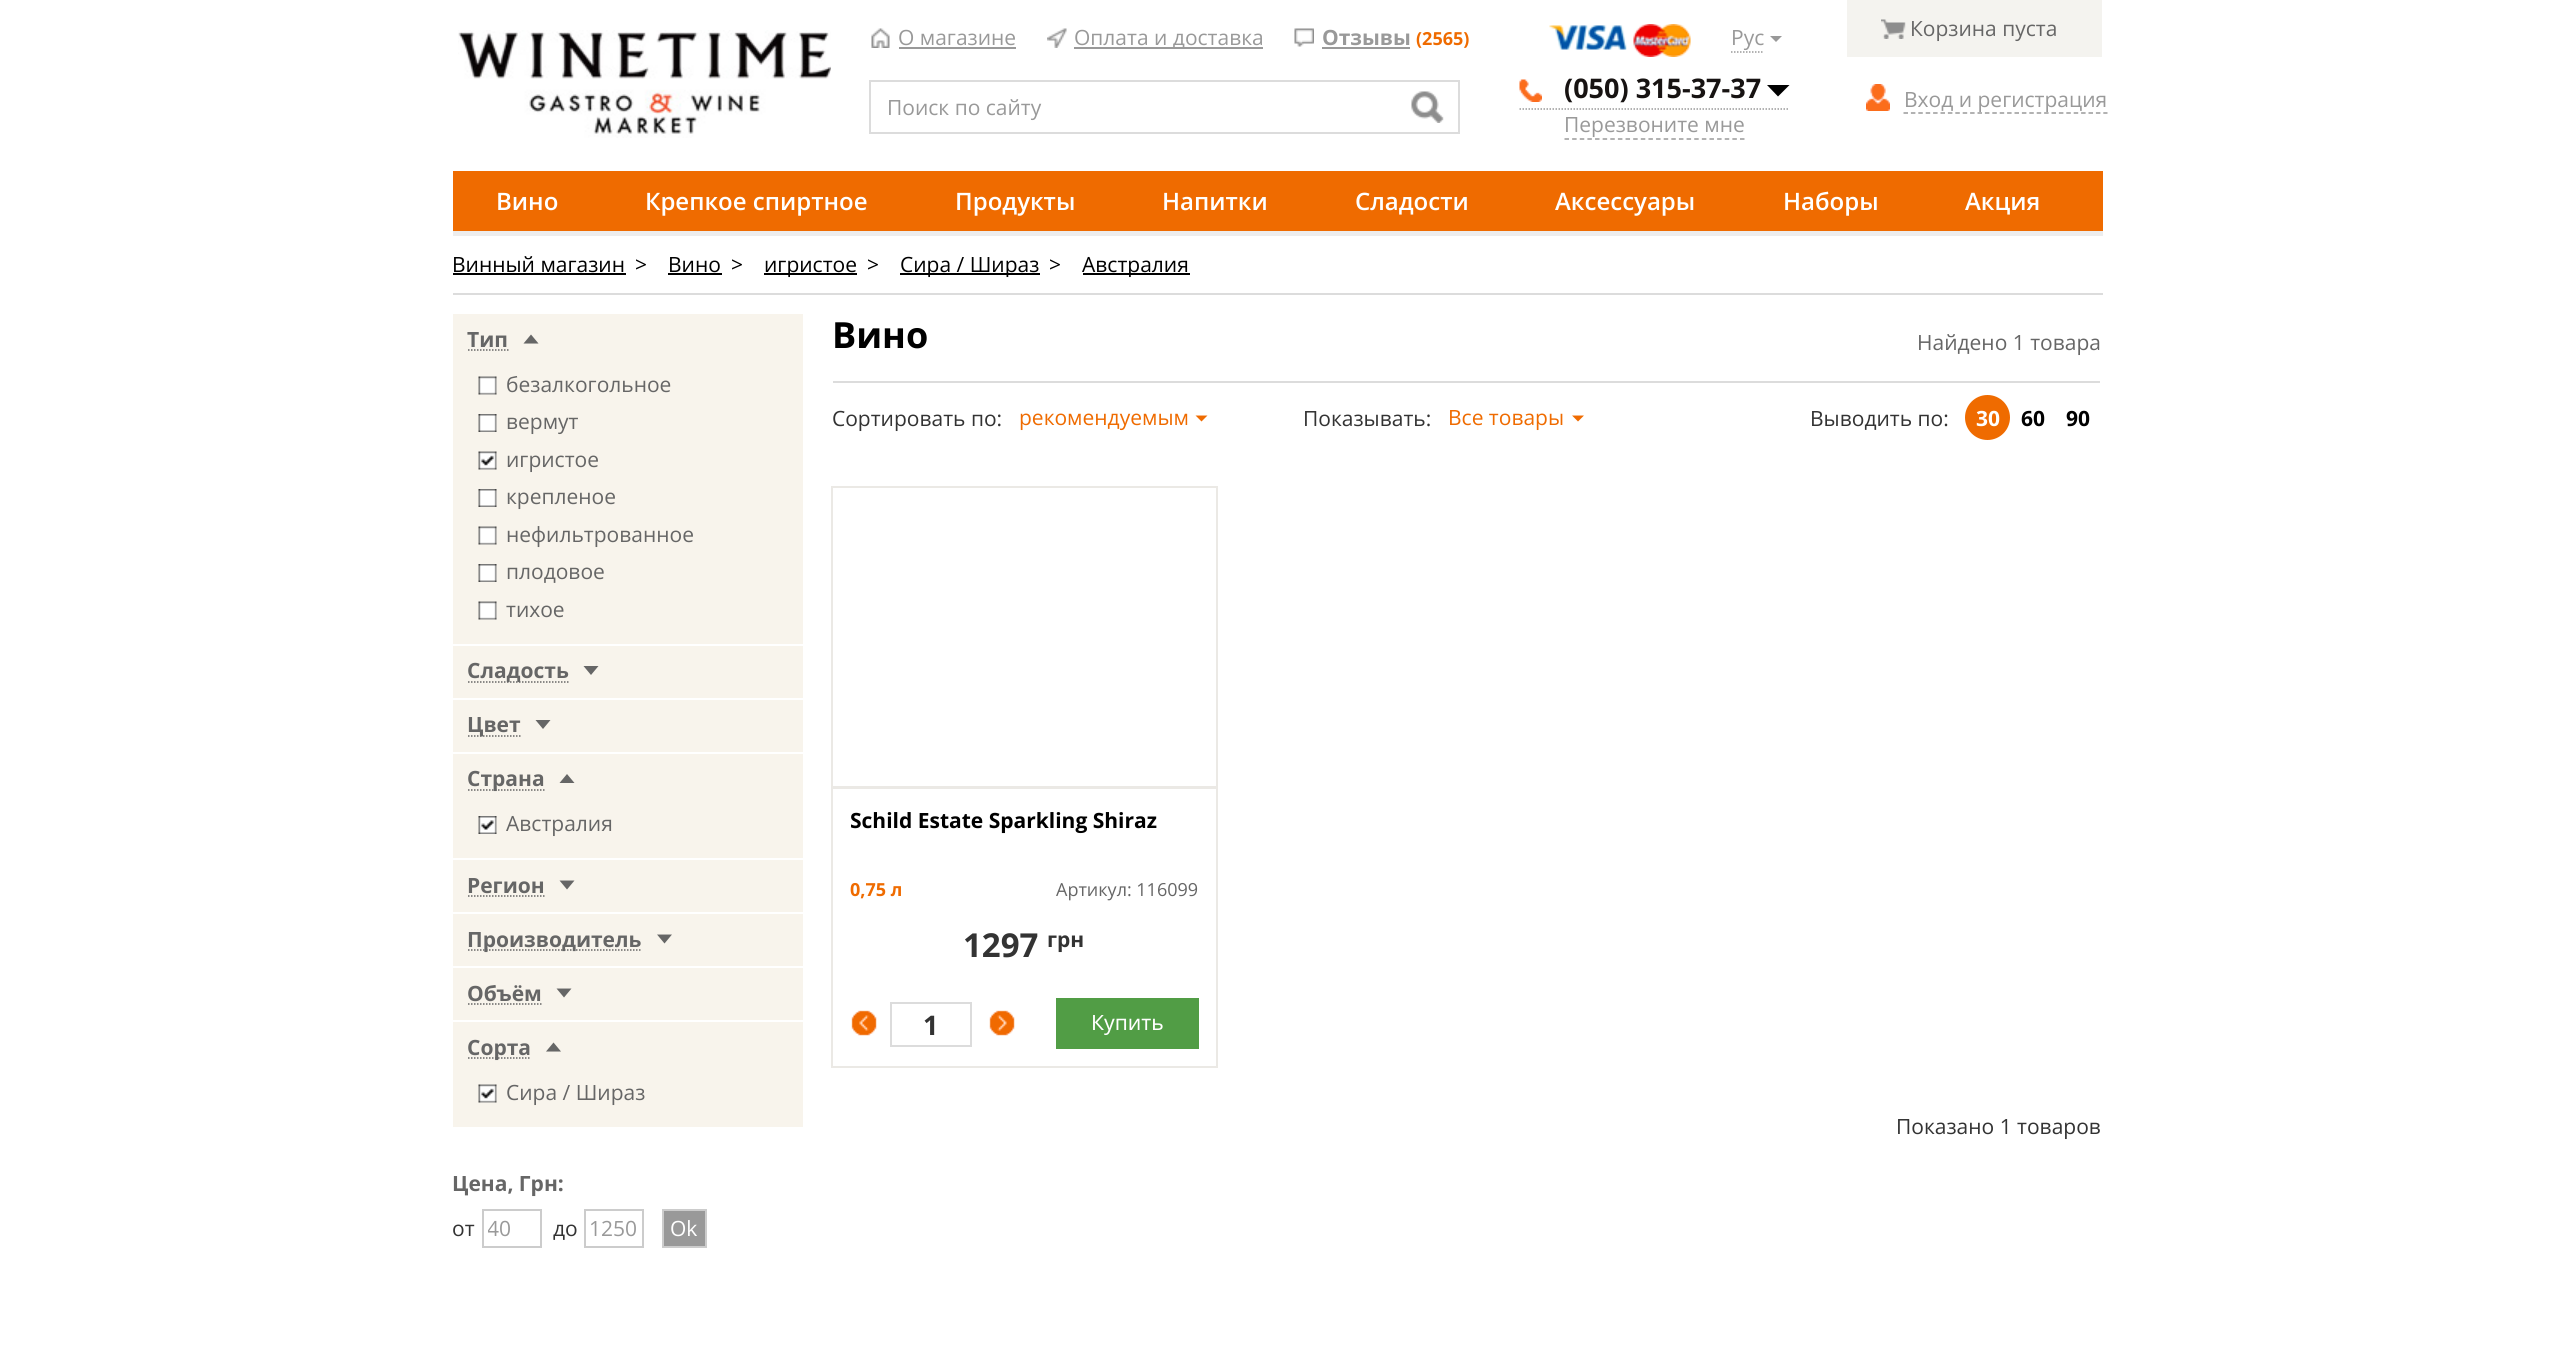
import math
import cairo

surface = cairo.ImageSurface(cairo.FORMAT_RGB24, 2554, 1351)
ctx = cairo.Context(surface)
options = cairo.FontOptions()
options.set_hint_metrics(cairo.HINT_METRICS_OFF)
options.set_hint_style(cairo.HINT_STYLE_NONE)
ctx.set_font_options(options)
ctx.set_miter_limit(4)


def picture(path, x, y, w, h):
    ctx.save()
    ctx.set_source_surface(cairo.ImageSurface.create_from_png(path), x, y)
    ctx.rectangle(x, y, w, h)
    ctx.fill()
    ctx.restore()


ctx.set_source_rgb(1, 1, 1)
ctx.paint()
picture("img1.png", 458, 30, 373, 108)
picture("img2.png", 871, 28, 19, 20)
ctx.select_font_face("Open Sans")
ctx.set_font_size(21)
ctx.set_source_rgb(0.6, 0.6, 0.6)
ctx.move_to(898, 45)
ctx.show_text("О магазине")
ctx.rectangle(899, 47, 117, 2)
ctx.fill()
picture("img3.png", 1047, 28, 20, 20)
ctx.rectangle(1074, 47, 189, 2)
ctx.fill()
ctx.move_to(1074, 45)
ctx.show_text("Оплата и доставка")
picture("img4.png", 1294, 28, 20, 19)
ctx.select_font_face("Open Sans", cairo.FONT_SLANT_NORMAL, cairo.FONT_WEIGHT_BOLD)
ctx.move_to(1322, 45)
ctx.show_text("Отзывы")
ctx.rectangle(1322, 47, 88, 2)
ctx.fill()
ctx.set_font_size(18)
ctx.set_source_rgb(0.937, 0.42, 0)
ctx.move_to(1416, 45)
ctx.show_text("(2565)")
ctx.rectangle(870, 81, 589, 52)
ctx.set_source_rgb(0.863, 0.863, 0.863)
ctx.stroke()
ctx.select_font_face("Open Sans")
ctx.set_font_size(21)
ctx.set_source_rgb(0.6, 0.6, 0.6)
ctx.move_to(887, 115)
ctx.show_text("Поиск по сайту")
picture("img5.png", 1411, 91, 33, 32)
picture("img6.png", 1549, 24, 142, 33)
ctx.move_to(1731, 45)
ctx.show_text("Рус")
ctx.new_path()
ctx.move_to(1731, 52)
ctx.line_to(1764, 52)
ctx.set_line_width(1.5)
ctx.set_dash([1.5, 1.5])
ctx.stroke()
ctx.new_path()
ctx.move_to(1770, 36)
ctx.line_to(1782, 36)
ctx.line_to(1776, 42)
ctx.close_path()
ctx.fill()
ctx.new_path()
ctx.move_to(1519.5, 109)
ctx.line_to(1789.5, 109)
ctx.stroke()
picture("img7.png", 1519, 79, 23, 23)
ctx.select_font_face("Open Sans", cairo.FONT_SLANT_NORMAL, cairo.FONT_WEIGHT_BOLD)
ctx.set_font_size(27)
ctx.set_source_rgb(0.09, 0.075, 0.071)
ctx.move_to(1564, 98)
ctx.show_text("(050) 315-37-37")
ctx.set_source_rgb(0, 0, 0)
ctx.new_path()
ctx.move_to(1767, 85)
ctx.line_to(1778, 96.5)
ctx.line_to(1789.5, 85)
ctx.close_path()
ctx.fill()
ctx.select_font_face("Open Sans")
ctx.set_font_size(21)
ctx.set_source_rgb(0.6, 0.6, 0.6)
ctx.move_to(1564, 132)
ctx.show_text("Перезвоните мне")
ctx.new_path()
ctx.move_to(1564.5, 139)
ctx.line_to(1744.5, 139)
ctx.set_dash([4.5, 3.13])
ctx.stroke()
ctx.set_source_rgb(0.957, 0.953, 0.937)
ctx.rectangle(1847, 0, 255, 57)
ctx.fill()
picture("img8.png", 1881, 19, 25, 20)
ctx.set_source_rgb(0.4, 0.4, 0.4)
ctx.move_to(1910, 36)
ctx.show_text("Корзина пуста")
picture("img9.png", 1866, 84, 24, 27)
ctx.set_source_rgb(0.6, 0.6, 0.6)
ctx.move_to(1904, 107)
ctx.show_text("Вход и регистрация")
ctx.new_path()
ctx.move_to(1903.5, 113)
ctx.line_to(2107.5, 113)
ctx.set_dash([4.5, 2.9])
ctx.stroke()
ctx.set_source_rgb(0.937, 0.42, 0)
ctx.rectangle(453, 171, 1650, 60)
ctx.fill()
ctx.set_source_rgb(0.929, 0.929, 0.929)
ctx.rectangle(453, 231, 1650, 5)
ctx.fill()
ctx.select_font_face("Open Sans SemiBold")
ctx.set_font_size(24)
ctx.set_source_rgb(1, 1, 1)
ctx.move_to(496, 210)
ctx.show_text("Вино")
ctx.move_to(645, 210)
ctx.show_text("Крепкое спиртное")
ctx.move_to(955, 210)
ctx.show_text("Продукты")
ctx.move_to(1162, 210)
ctx.show_text("Напитки")
ctx.move_to(1355, 210)
ctx.show_text("Сладости")
ctx.move_to(1555, 210)
ctx.show_text("Аксессуары")
ctx.move_to(1783, 210)
ctx.show_text("Наборы")
ctx.move_to(1965, 210)
ctx.show_text("Акция")
ctx.set_source_rgb(0.863, 0.863, 0.863)
ctx.rectangle(453, 293, 1650, 2)
ctx.fill()
ctx.select_font_face("Open Sans")
ctx.set_font_size(21)
ctx.set_source_rgb(0, 0, 0)
ctx.move_to(452, 272)
ctx.show_text("Винный магазин")
ctx.rectangle(453, 273, 173, 2)
ctx.fill()
ctx.move_to(635, 272)
ctx.show_text(">")
ctx.move_to(668, 272)
ctx.show_text("Вино")
ctx.rectangle(668, 273, 54, 2)
ctx.fill()
ctx.move_to(731, 272)
ctx.show_text(">")
ctx.rectangle(764, 273, 93, 2)
ctx.fill()
ctx.move_to(764, 272)
ctx.show_text("игристое")
ctx.move_to(867, 272)
ctx.show_text(">")
ctx.rectangle(900, 273, 140, 2)
ctx.fill()
ctx.move_to(900, 272)
ctx.show_text("Сира / Шираз")
ctx.move_to(1049, 272)
ctx.show_text(">")
ctx.rectangle(1083, 273, 107, 2)
ctx.fill()
ctx.move_to(1082, 272)
ctx.show_text("Австралия")
ctx.set_source_rgb(0.969, 0.957, 0.925)
ctx.rectangle(453, 314, 350, 330)
ctx.fill()
ctx.new_path()
ctx.move_to(468, 350)
ctx.line_to(508.5, 350)
ctx.set_source_rgb(0.4, 0.4, 0.4)
ctx.set_dash([1.5, 1.5])
ctx.stroke()
ctx.select_font_face("Open Sans", cairo.FONT_SLANT_NORMAL, cairo.FONT_WEIGHT_BOLD)
ctx.move_to(467, 347)
ctx.show_text("Тип")
ctx.new_path()
ctx.move_to(538.5, 343.5)
ctx.line_to(523.5, 343.5)
ctx.line_to(531, 334.5)
ctx.close_path()
ctx.fill()
picture("img10.png", 478, 376, 19, 19)
ctx.select_font_face("Open Sans")
ctx.move_to(506, 392)
ctx.show_text("безалкогольное")
picture("img11.png", 478, 414, 19, 18)
ctx.move_to(506, 429)
ctx.show_text("вермут")
picture("img12.png", 478, 451, 19, 19)
ctx.move_to(506, 467)
ctx.show_text("игристое")
picture("img11.png", 478, 489, 19, 18)
ctx.move_to(506, 504)
ctx.show_text("крепленое")
picture("img10.png", 478, 526, 19, 19)
ctx.move_to(506, 542)
ctx.show_text("нефильтрованное")
picture("img11.png", 478, 564, 19, 18)
ctx.move_to(506, 579)
ctx.show_text("плодовое")
picture("img10.png", 478, 601, 19, 19)
ctx.move_to(506, 617)
ctx.show_text("тихое")
ctx.set_source_rgb(0.969, 0.957, 0.925)
ctx.rectangle(453, 646, 350, 52)
ctx.fill()
ctx.new_path()
ctx.move_to(468, 682)
ctx.line_to(568.5, 682)
ctx.set_source_rgb(0.4, 0.4, 0.4)
ctx.stroke()
ctx.select_font_face("Open Sans", cairo.FONT_SLANT_NORMAL, cairo.FONT_WEIGHT_BOLD)
ctx.move_to(467, 678)
ctx.show_text("Сладость")
ctx.new_path()
ctx.move_to(583.5, 666)
ctx.line_to(598.5, 666)
ctx.line_to(591, 675)
ctx.close_path()
ctx.fill()
ctx.set_source_rgb(0.969, 0.957, 0.925)
ctx.rectangle(453, 700, 350, 52)
ctx.fill()
ctx.new_path()
ctx.move_to(468, 736)
ctx.line_to(520.5, 736)
ctx.set_source_rgb(0.4, 0.4, 0.4)
ctx.stroke()
ctx.move_to(467, 732)
ctx.show_text("Цвет")
ctx.new_path()
ctx.move_to(535.5, 720)
ctx.line_to(550.5, 720)
ctx.line_to(543, 729)
ctx.close_path()
ctx.fill()
ctx.set_source_rgb(0.969, 0.957, 0.925)
ctx.rectangle(453, 754, 350, 104)
ctx.fill()
ctx.new_path()
ctx.move_to(468, 790)
ctx.line_to(544.5, 790)
ctx.set_source_rgb(0.4, 0.4, 0.4)
ctx.stroke()
ctx.move_to(467, 786)
ctx.show_text("Страна")
ctx.new_path()
ctx.move_to(574.5, 783)
ctx.line_to(559.5, 783)
ctx.line_to(567, 774)
ctx.close_path()
ctx.fill()
picture("img13.png", 478, 816, 19, 18)
ctx.select_font_face("Open Sans")
ctx.move_to(506, 831)
ctx.show_text("Австралия")
ctx.set_source_rgb(0.969, 0.957, 0.925)
ctx.rectangle(453, 860, 350, 52)
ctx.fill()
ctx.new_path()
ctx.move_to(468, 896)
ctx.line_to(544.5, 896)
ctx.set_source_rgb(0.4, 0.4, 0.4)
ctx.stroke()
ctx.select_font_face("Open Sans", cairo.FONT_SLANT_NORMAL, cairo.FONT_WEIGHT_BOLD)
ctx.move_to(467, 893)
ctx.show_text("Регион")
ctx.new_path()
ctx.move_to(559.5, 880.5)
ctx.line_to(574.5, 880.5)
ctx.line_to(567, 889.5)
ctx.close_path()
ctx.fill()
ctx.set_source_rgb(0.969, 0.957, 0.925)
ctx.rectangle(453, 914, 350, 52)
ctx.fill()
ctx.new_path()
ctx.move_to(468, 950)
ctx.line_to(642, 950)
ctx.set_source_rgb(0.4, 0.4, 0.4)
ctx.stroke()
ctx.move_to(467, 947)
ctx.show_text("Производитель")
ctx.new_path()
ctx.move_to(657, 934.5)
ctx.line_to(672, 934.5)
ctx.line_to(664.5, 943.5)
ctx.close_path()
ctx.fill()
ctx.set_source_rgb(0.969, 0.957, 0.925)
ctx.rectangle(453, 968, 350, 52)
ctx.fill()
ctx.new_path()
ctx.move_to(468, 1004)
ctx.line_to(541.5, 1004)
ctx.set_source_rgb(0.4, 0.4, 0.4)
ctx.stroke()
ctx.move_to(467, 1001)
ctx.show_text("Объём")
ctx.new_path()
ctx.move_to(556.5, 988.5)
ctx.line_to(571.5, 988.5)
ctx.line_to(564, 997.5)
ctx.close_path()
ctx.fill()
ctx.set_source_rgb(0.969, 0.957, 0.925)
ctx.rectangle(453, 1022, 350, 105)
ctx.fill()
ctx.new_path()
ctx.move_to(468, 1058)
ctx.line_to(531, 1058)
ctx.set_source_rgb(0.4, 0.4, 0.4)
ctx.stroke()
ctx.move_to(467, 1055)
ctx.show_text("Сорта")
ctx.new_path()
ctx.move_to(561, 1051.5)
ctx.line_to(546, 1051.5)
ctx.line_to(553.5, 1042.5)
ctx.close_path()
ctx.fill()
picture("img12.png", 478, 1084, 19, 19)
ctx.select_font_face("Open Sans")
ctx.move_to(506, 1100)
ctx.show_text("Сира / Шираз")
ctx.select_font_face("Open Sans", cairo.FONT_SLANT_NORMAL, cairo.FONT_WEIGHT_BOLD)
ctx.move_to(452, 1191)
ctx.show_text("Цена, Грн:")
ctx.select_font_face("Open Sans")
ctx.set_source_rgb(0.2, 0.2, 0.2)
ctx.move_to(452, 1236)
ctx.show_text("от")
ctx.rectangle(483, 1210, 58, 37)
ctx.set_source_rgb(0.8, 0.8, 0.8)
ctx.set_line_width(2)
ctx.set_dash([])
ctx.stroke()
ctx.save()
ctx.rectangle(488, 1215, 48, 27)
ctx.clip()
ctx.set_source_rgb(0.6, 0.6, 0.6)
ctx.move_to(487, 1236)
ctx.show_text("40")
ctx.restore()
ctx.set_source_rgb(0.2, 0.2, 0.2)
ctx.move_to(553, 1236)
ctx.show_text("до")
ctx.rectangle(585, 1210, 58, 37)
ctx.set_source_rgb(0.8, 0.8, 0.8)
ctx.stroke()
ctx.set_source_rgb(0.6, 0.6, 0.6)
ctx.move_to(589, 1236)
ctx.show_text("1250")
ctx.rectangle(663, 1210, 43, 37)
ctx.fill_preserve()
ctx.set_source_rgb(0.8, 0.8, 0.8)
ctx.stroke()
ctx.set_source_rgb(1, 1, 1)
ctx.move_to(670, 1236)
ctx.show_text("Ok")
ctx.set_source_rgb(0.863, 0.863, 0.863)
ctx.rectangle(833, 381, 1267, 2)
ctx.fill()
ctx.select_font_face("Open Sans", cairo.FONT_SLANT_NORMAL, cairo.FONT_WEIGHT_BOLD)
ctx.set_font_size(36)
ctx.set_source_rgb(0, 0, 0)
ctx.move_to(832, 348)
ctx.show_text("Вино")
ctx.select_font_face("Open Sans")
ctx.set_font_size(21)
ctx.set_source_rgb(0.4, 0.4, 0.4)
ctx.move_to(1917, 350)
ctx.show_text("Найдено 1 товара")
ctx.set_source_rgb(0.2, 0.2, 0.2)
ctx.move_to(832, 426)
ctx.show_text("Сортировать по:")
ctx.set_source_rgb(0.937, 0.42, 0)
ctx.move_to(1019, 425)
ctx.show_text("рекомендуемым")
ctx.new_path()
ctx.move_to(1195.5, 415.5)
ctx.line_to(1207.5, 415.5)
ctx.line_to(1201.5, 421.5)
ctx.close_path()
ctx.fill()
ctx.set_source_rgb(0.2, 0.2, 0.2)
ctx.move_to(1303, 426)
ctx.show_text("Показывать:")
ctx.set_source_rgb(0.937, 0.42, 0)
ctx.move_to(1448, 425)
ctx.show_text("Все товары")
ctx.new_path()
ctx.move_to(1572, 415.5)
ctx.line_to(1584, 415.5)
ctx.line_to(1578, 421.5)
ctx.close_path()
ctx.fill()
ctx.set_source_rgb(0.2, 0.2, 0.2)
ctx.move_to(1810, 426)
ctx.show_text("Выводить по:")
ctx.set_source_rgb(0.937, 0.42, 0)
ctx.new_path()
ctx.arc(1987.5, 417.5, 22.5, 0, 2 * math.pi)
ctx.fill()
ctx.select_font_face("Open Sans", cairo.FONT_SLANT_NORMAL, cairo.FONT_WEIGHT_BOLD)
ctx.set_source_rgb(1, 1, 1)
ctx.move_to(1976, 426)
ctx.show_text("30")
ctx.set_source_rgb(0, 0, 0)
ctx.move_to(2021, 426)
ctx.show_text("60")
ctx.move_to(2066, 426)
ctx.show_text("90")
ctx.rectangle(832, 487, 385, 301)
ctx.set_source_rgb(0.918, 0.914, 0.898)
ctx.stroke()
ctx.set_source_rgb(0.318, 0.616, 0.271)
ctx.rectangle(1056, 998, 143, 51)
ctx.fill()
ctx.rectangle(832, 787, 385, 280)
ctx.set_source_rgb(0.918, 0.914, 0.898)
ctx.stroke()
ctx.save()
ctx.rectangle(851, 806, 348, 60)
ctx.clip()
ctx.set_source_rgb(0, 0, 0)
ctx.move_to(850, 828)
ctx.show_text("Schild Estate Sparkling Shiraz")
ctx.restore()
ctx.set_font_size(18)
ctx.set_source_rgb(0.937, 0.42, 0)
ctx.move_to(850, 896)
ctx.show_text("0,75 л")
ctx.select_font_face("Open Sans")
ctx.set_source_rgb(0.4, 0.4, 0.4)
ctx.move_to(1056, 896)
ctx.show_text("Артикул: 116099")
ctx.select_font_face("Open Sans", cairo.FONT_SLANT_NORMAL, cairo.FONT_WEIGHT_BOLD)
ctx.set_font_size(33)
ctx.set_source_rgb(0.2, 0.2, 0.2)
ctx.move_to(963, 957)
ctx.show_text("1297")
ctx.set_font_size(21)
ctx.move_to(1047, 947)
ctx.show_text("грн")
picture("img14.png", 851, 1010, 26, 26)
ctx.rectangle(891, 1003, 80, 43)
ctx.set_source_rgb(0.863, 0.863, 0.863)
ctx.stroke()
ctx.set_font_size(27)
ctx.set_source_rgb(0.2, 0.2, 0.2)
ctx.move_to(923, 1035)
ctx.show_text("1")
picture("img15.png", 989, 1010, 26, 26)
ctx.select_font_face("Noto Sans")
ctx.set_font_size(21)
ctx.set_source_rgb(1, 1, 1)
ctx.move_to(1091, 1030)
ctx.show_text("Купить")
ctx.select_font_face("Open Sans")
ctx.set_source_rgb(0.2, 0.2, 0.2)
ctx.move_to(1896, 1134)
ctx.show_text("Показано 1 товаров")
surface.write_to_png("page.png")
